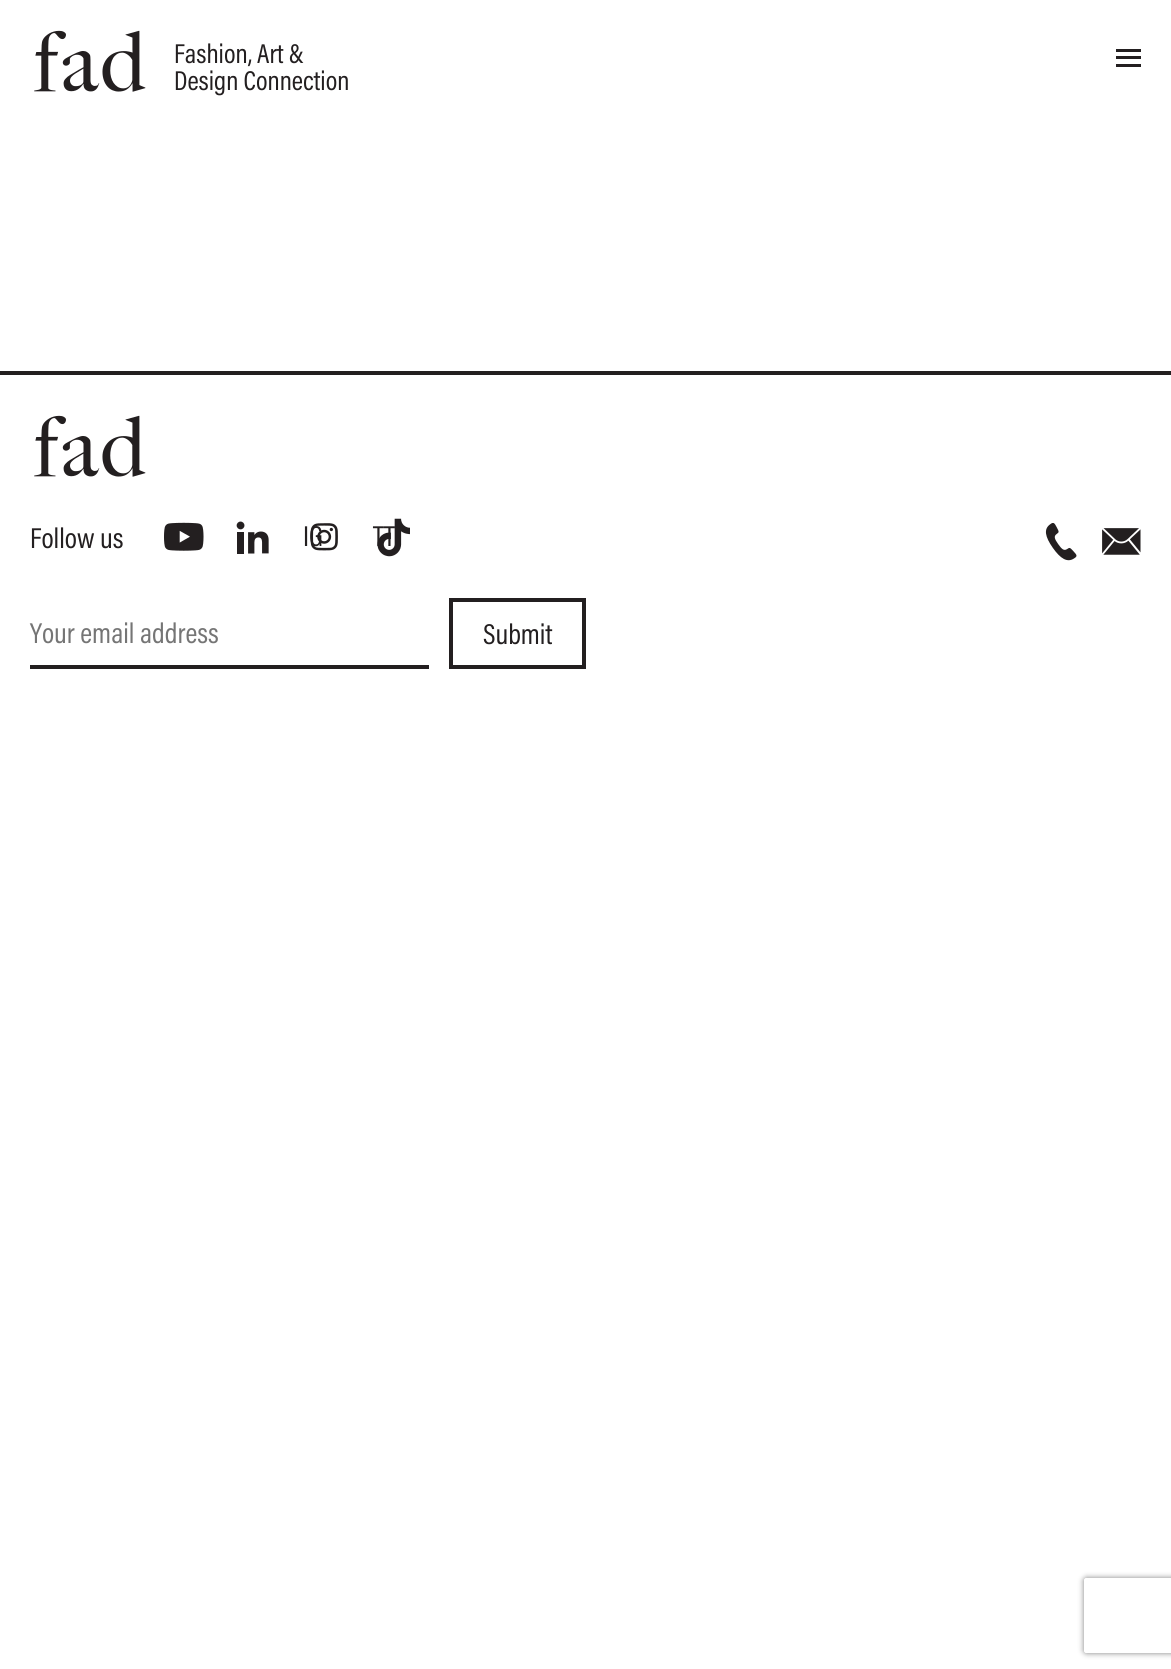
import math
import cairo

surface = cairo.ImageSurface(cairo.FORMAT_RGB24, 1171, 1669)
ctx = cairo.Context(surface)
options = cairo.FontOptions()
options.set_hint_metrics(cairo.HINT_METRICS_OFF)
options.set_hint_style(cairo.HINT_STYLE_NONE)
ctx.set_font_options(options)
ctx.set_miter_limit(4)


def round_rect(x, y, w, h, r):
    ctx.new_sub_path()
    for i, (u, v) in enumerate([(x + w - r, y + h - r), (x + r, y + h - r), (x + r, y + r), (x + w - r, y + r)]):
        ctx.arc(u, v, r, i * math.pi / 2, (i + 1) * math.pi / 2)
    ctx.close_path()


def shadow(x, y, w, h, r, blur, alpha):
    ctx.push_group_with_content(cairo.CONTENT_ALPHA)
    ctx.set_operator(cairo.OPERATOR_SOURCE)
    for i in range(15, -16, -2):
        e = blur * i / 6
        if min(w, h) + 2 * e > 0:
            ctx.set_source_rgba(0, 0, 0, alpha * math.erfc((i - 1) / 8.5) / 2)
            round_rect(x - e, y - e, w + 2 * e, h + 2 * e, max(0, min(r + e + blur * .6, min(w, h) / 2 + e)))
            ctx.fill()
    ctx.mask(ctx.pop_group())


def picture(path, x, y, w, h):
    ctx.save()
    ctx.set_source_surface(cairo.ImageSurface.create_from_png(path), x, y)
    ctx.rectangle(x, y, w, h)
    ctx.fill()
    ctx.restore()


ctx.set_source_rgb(1, 1, 1)
ctx.paint()
picture("img1.png", 34, 30, 112, 62)
ctx.select_font_face("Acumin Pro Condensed")
ctx.set_font_size(27.5)
ctx.set_source_rgb(0.137, 0.122, 0.125)
ctx.move_to(174, 63)
ctx.show_text("Fashion, Art &")
ctx.move_to(174, 90)
ctx.show_text("Design Connection")
ctx.rectangle(1116, 49, 25, 3)
ctx.fill()
ctx.rectangle(1116, 56, 25, 3)
ctx.fill()
ctx.rectangle(1116, 64, 25, 3)
ctx.fill()
ctx.rectangle(0, 371, 1171, 4)
ctx.fill()
picture("img1.png", 34, 415, 112, 62)
ctx.set_font_size(29)
ctx.move_to(30, 548)
ctx.show_text("Follow us")
picture("img2.png", 164, 522, 40, 29)
picture("img3.png", 236, 521, 33, 33)
picture("img4.png", 310, 523, 28, 28)
ctx.move_to(303, 546)
ctx.show_text("IG")
picture("img5.png", 377, 518, 33, 39)
ctx.move_to(373, 546)
ctx.show_text("TT")
ctx.rectangle(30, 665, 399, 4)
ctx.fill()
ctx.set_source_rgb(0.459, 0.459, 0.459)
ctx.move_to(30, 643)
ctx.show_text("Your email address")
ctx.rectangle(451, 600, 133, 67)
ctx.set_source_rgb(0.137, 0.122, 0.125)
ctx.set_line_width(4)
ctx.stroke()
ctx.move_to(483, 644)
ctx.show_text("Submit")
picture("img6.png", 1045, 523, 32, 38)
picture("img7.png", 1102, 528, 39, 27)
ctx.save()
ctx.set_fill_rule(cairo.FILL_RULE_EVEN_ODD)
ctx.new_path()
ctx.move_to(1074, 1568)
ctx.line_to(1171, 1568)
ctx.line_to(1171, 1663)
ctx.line_to(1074, 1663)
ctx.close_path()
ctx.move_to(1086.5, 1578)
ctx.line_to(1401.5, 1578)
ctx.curve_to(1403, 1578, 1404, 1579, 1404, 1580.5)
ctx.line_to(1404, 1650.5)
ctx.curve_to(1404, 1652, 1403, 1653, 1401.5, 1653)
ctx.line_to(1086.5, 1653)
ctx.curve_to(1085, 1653, 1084, 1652, 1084, 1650.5)
ctx.line_to(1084, 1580.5)
ctx.curve_to(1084, 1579, 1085, 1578, 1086.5, 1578)
ctx.close_path()
ctx.clip()
ctx.set_source_rgb(0.502, 0.502, 0.502)
shadow(1084, 1578, 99, 75, 2.5, 3, 1)
ctx.restore()
surface.write_to_png("page.png")
